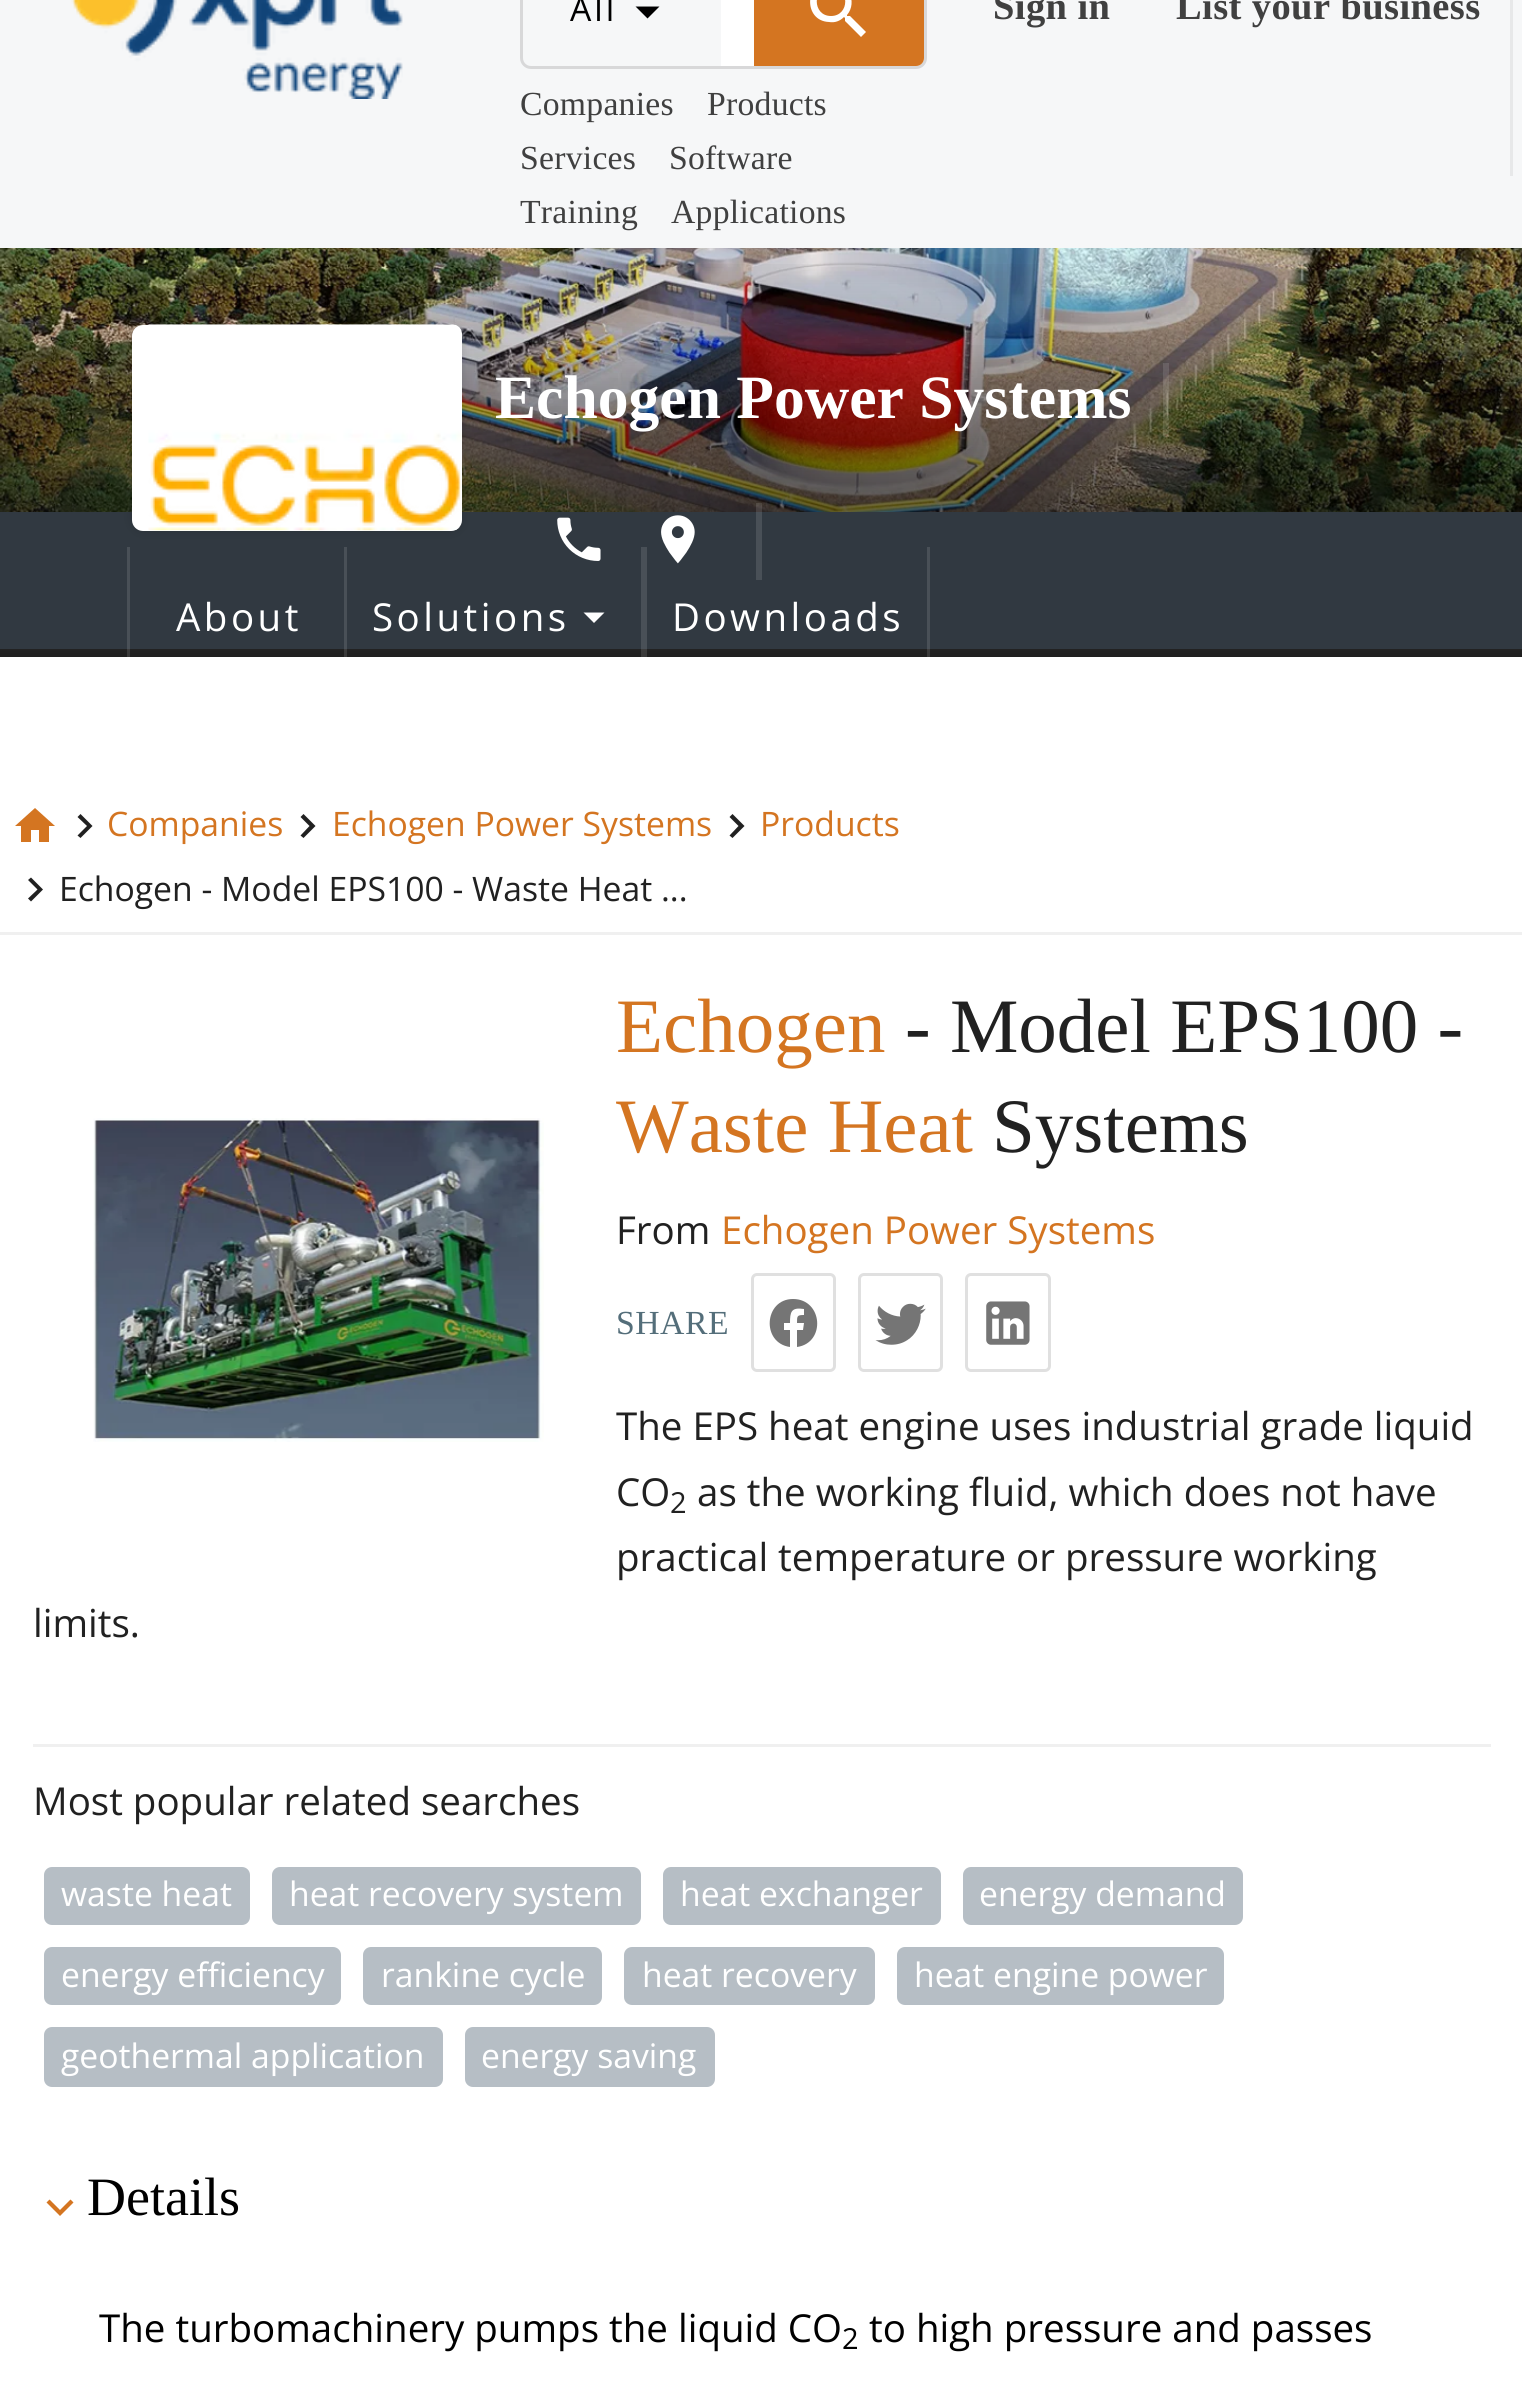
import math
import cairo

surface = cairo.ImageSurface(cairo.FORMAT_RGB24, 1522, 2386)
ctx = cairo.Context(surface)
options = cairo.FontOptions()
options.set_hint_metrics(cairo.HINT_METRICS_OFF)
options.set_hint_style(cairo.HINT_STYLE_NONE)
ctx.set_font_options(options)
ctx.set_miter_limit(4)


def spaced_text(x, y, s, letter, word):
    ctx.move_to(x, y)
    for ch in s:
        ctx.show_text(ch)
        ctx.rel_move_to(letter + word * (ch == ' '), 0)


def round_rect(x, y, w, h, r):
    ctx.new_sub_path()
    for i, (u, v) in enumerate([(x + w - r, y + h - r), (x + r, y + h - r), (x + r, y + r), (x + w - r, y + r)]):
        ctx.arc(u, v, r, i * math.pi / 2, (i + 1) * math.pi / 2)
    ctx.close_path()


def shadow(x, y, w, h, r, blur, alpha):
    ctx.push_group_with_content(cairo.CONTENT_ALPHA)
    ctx.set_operator(cairo.OPERATOR_SOURCE)
    for i in range(15, -16, -2):
        e = blur * i / 6
        if min(w, h) + 2 * e > 0:
            ctx.set_source_rgba(0, 0, 0, alpha * math.erfc((i - 1) / 8.5) / 2)
            round_rect(x - e, y - e, w + 2 * e, h + 2 * e, max(0, min(r + e + blur * .6, min(w, h) / 2 + e)))
            ctx.fill()
    ctx.mask(ctx.pop_group())


def picture(path, x, y, w, h):
    ctx.save()
    ctx.set_source_surface(cairo.ImageSurface.create_from_png(path), x, y)
    ctx.rectangle(x, y, w, h)
    ctx.fill()
    ctx.restore()


ctx.set_source_rgb(1, 1, 1)
ctx.paint()
ctx.set_source_rgb(0.961, 0.965, 0.969)
ctx.rectangle(0, 0, 1522, 248)
ctx.fill()
picture("img1.png", 71, 0, 332, 99)
round_rect(521.5, -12.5, 404, 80, 9.5)
ctx.set_source_rgb(0.847, 0.847, 0.851)
ctx.set_line_width(3)
ctx.stroke()
ctx.select_font_face("Open Sans")
ctx.set_font_size(33.7)
ctx.set_source_rgb(0, 0, 0)
spaced_text(570, 21, "All", 3, 0)
ctx.new_path()
ctx.move_to(635.5, 6.5)
ctx.line_to(647.5, 18.5)
ctx.line_to(659.5, 6.5)
ctx.close_path()
ctx.fill()
ctx.set_source_rgb(1, 1, 1)
ctx.rectangle(721, 0, 33, 66)
ctx.fill()
ctx.set_source_rgb(0.831, 0.459, 0.129)
ctx.new_path()
ctx.move_to(754, 0)
ctx.line_to(924, 0)
ctx.line_to(924, 58)
ctx.curve_to(924, 62.5, 920.5, 66, 916, 66)
ctx.line_to(754, 66)
ctx.close_path()
ctx.fill()
ctx.set_source_rgb(1, 1, 1)
ctx.new_path()
ctx.move_to(831, -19)
ctx.curve_to(848, -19, 858, 2, 847, 15)
ctx.line_to(847, 16)
ctx.line_to(850, 16)
ctx.line_to(866, 32)
ctx.line_to(861, 37)
ctx.line_to(845, 21)
ctx.line_to(845, 18)
ctx.line_to(844, 17)
ctx.curve_to(840, 21, 835, 23, 829, 22)
ctx.curve_to(803, 21, 804, -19, 831, -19)
ctx.close_path()
ctx.move_to(831, -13)
ctx.curve_to(812, -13, 812, 16, 831, 16)
ctx.curve_to(850, 16, 850, -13, 831, -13)
ctx.close_path()
ctx.fill()
ctx.select_font_face("Liberation Serif")
ctx.set_source_rgb(0.251, 0.251, 0.251)
spaced_text(520, 115, "Companies", 0.25, 0)
spaced_text(707, 115, "Products", 0.25, 0)
spaced_text(520, 169, "Services", 0.25, 0)
spaced_text(669, 169, "Software", 0.25, 0)
spaced_text(520, 223, "Training", 0.25, 0)
spaced_text(671, 223, "Applications", 0.25, 0)
ctx.select_font_face("Liberation Serif", cairo.FONT_SLANT_NORMAL, cairo.FONT_WEIGHT_BOLD)
ctx.set_font_size(38.5)
spaced_text(993, 19, "Sign in", 0.4, 0)
spaced_text(1176, 19, "List your business", 0.4, 0)
ctx.set_source_rgb(0.906, 0.91, 0.914)
ctx.rectangle(1510, 0, 3, 176)
ctx.fill()
picture("img2.png", 0, 248, 1522, 264)
gradient = cairo.LinearGradient(762, 245, 762, 657)
gradient.add_color_stop_rgba(0.01, 0, 0, 0, 0)
gradient.add_color_stop_rgba(0.6, 0, 0, 0, 0.35)
gradient.add_color_stop_rgba(1, 0, 0, 0, 0.65)
ctx.set_source(gradient)
ctx.rectangle(0, 264, 1522, 393)
ctx.fill()
gradient = cairo.LinearGradient(762, 330, 762, 657)
gradient.add_color_stop_rgba(0.01, 0, 0, 0, 0)
gradient.add_color_stop_rgba(0.6, 0, 0, 0, 0.35)
gradient.add_color_stop_rgba(1, 0, 0, 0, 0.65)
ctx.set_source(gradient)
ctx.rectangle(0, 345, 1522, 312)
ctx.fill()
ctx.set_source_rgb(0.192, 0.224, 0.255)
ctx.rectangle(0, 512, 1522, 137)
ctx.fill()
ctx.set_source_rgba(1, 1, 1, 0.12)
ctx.rectangle(127, 547, 3, 110)
ctx.fill()
ctx.rectangle(344, 547, 3, 110)
ctx.fill()
ctx.set_source_rgb(0, 0, 0)
shadow(132, 325, 330, 206, 11, 5.5, 0.15)
ctx.set_source_rgb(1, 1, 1)
round_rect(132, 325, 330, 206, 11)
ctx.fill()
picture("img3.png", 148, 324, 314, 207)
ctx.set_font_size(61.6)
ctx.move_to(495, 418)
ctx.show_text("Echogen Power Systems")
ctx.set_source_rgba(1, 1, 1, 0.12)
ctx.rectangle(1163, 363, 6, 74)
ctx.fill()
picture("img4.png", 557, 517, 44, 44)
picture("img5.png", 661, 515, 34, 49)
ctx.rectangle(756, 503, 6, 77)
ctx.fill()
ctx.select_font_face("Open Sans")
ctx.set_font_size(38.5)
ctx.set_source_rgb(1, 1, 1)
spaced_text(176, 631, "About", 3.5, 0)
spaced_text(372, 631, "Solutions", 3.5, 0)
ctx.new_path()
ctx.move_to(583.5, 612.5)
ctx.line_to(594, 623)
ctx.line_to(604.5, 612.5)
ctx.close_path()
ctx.fill()
ctx.set_source_rgba(1, 1, 1, 0.12)
ctx.rectangle(641, 547, 3, 110)
ctx.fill()
ctx.rectangle(644, 547, 3, 110)
ctx.fill()
ctx.set_source_rgb(1, 1, 1)
spaced_text(672, 631, "Downloads", 3.5, 0)
ctx.set_source_rgba(1, 1, 1, 0.12)
ctx.rectangle(927, 547, 3, 110)
ctx.fill()
ctx.set_source_rgb(0.831, 0.459, 0.129)
ctx.new_path()
ctx.move_to(31, 842)
ctx.line_to(31, 830)
ctx.line_to(39, 830)
ctx.line_to(39, 842)
ctx.line_to(49, 842)
ctx.line_to(49, 826)
ctx.line_to(55, 826)
ctx.line_to(35, 808)
ctx.line_to(15, 826)
ctx.line_to(21, 826)
ctx.line_to(21, 842)
ctx.close_path()
ctx.fill()
ctx.set_source_rgb(0.129, 0.129, 0.129)
ctx.new_path()
ctx.move_to(77.5, 835.5)
ctx.line_to(87, 826)
ctx.line_to(77.5, 817)
ctx.line_to(80.5, 814)
ctx.line_to(92.5, 826)
ctx.line_to(80.5, 838)
ctx.close_path()
ctx.fill()
ctx.set_font_size(33.7)
ctx.set_source_rgb(0.831, 0.459, 0.129)
ctx.move_to(107, 836)
ctx.show_text("Companies")
ctx.set_source_rgb(0.129, 0.129, 0.129)
ctx.new_path()
ctx.move_to(300.5, 835.5)
ctx.line_to(309.5, 826)
ctx.line_to(300.5, 817)
ctx.line_to(303.5, 814)
ctx.line_to(315.5, 826)
ctx.line_to(303.5, 838)
ctx.close_path()
ctx.fill()
ctx.set_source_rgb(0.831, 0.459, 0.129)
ctx.move_to(332, 836)
ctx.show_text("Echogen Power Systems")
ctx.set_source_rgb(0.129, 0.129, 0.129)
ctx.new_path()
ctx.move_to(729.5, 835.5)
ctx.line_to(738.5, 826)
ctx.line_to(729.5, 817)
ctx.line_to(732.5, 814)
ctx.line_to(744.5, 826)
ctx.line_to(732.5, 838)
ctx.close_path()
ctx.fill()
ctx.set_source_rgb(0.831, 0.459, 0.129)
ctx.move_to(760, 836)
ctx.show_text("Products")
ctx.set_source_rgb(0.129, 0.129, 0.129)
ctx.new_path()
ctx.move_to(28, 898.5)
ctx.line_to(37.5, 889.5)
ctx.line_to(28, 880)
ctx.line_to(31, 877.5)
ctx.line_to(43, 889.5)
ctx.line_to(31, 901.5)
ctx.close_path()
ctx.fill()
ctx.move_to(59, 901)
ctx.show_text("Echogen - Model EPS100 - Waste Heat ...")
ctx.set_source_rgb(0.941, 0.941, 0.941)
ctx.rectangle(0, 932, 1522, 3)
ctx.fill()
ctx.select_font_face("Liberation Serif")
ctx.set_font_size(77)
ctx.set_source_rgb(0.831, 0.459, 0.129)
ctx.move_to(616, 1052)
ctx.show_text("Echogen")
ctx.set_source_rgb(0.129, 0.129, 0.129)
ctx.move_to(905, 1052)
ctx.show_text("- Model EPS100 -")
ctx.set_source_rgb(0.831, 0.459, 0.129)
ctx.move_to(616, 1152)
ctx.show_text("Waste Heat")
ctx.set_source_rgb(0.129, 0.129, 0.129)
ctx.move_to(992, 1152)
ctx.show_text("Systems")
ctx.select_font_face("Open Sans")
ctx.set_font_size(38.5)
ctx.move_to(616, 1244)
ctx.show_text("From")
ctx.set_source_rgb(0.831, 0.459, 0.129)
ctx.move_to(721, 1244)
ctx.show_text("Echogen Power Systems")
ctx.select_font_face("Liberation Serif")
ctx.set_font_size(33.7)
ctx.set_source_rgb(0.329, 0.431, 0.478)
spaced_text(616, 1334, "SHARE", 0.5, 0)
round_rect(752.5, 1274.5, 82, 96, 4.5)
ctx.set_source_rgb(0.878, 0.878, 0.878)
ctx.stroke()
ctx.set_source_rgb(0.459, 0.459, 0.459)
ctx.new_path()
ctx.move_to(793, 1299)
ctx.curve_to(764, 1299, 761, 1343, 790, 1347)
ctx.line_to(790, 1330)
ctx.line_to(784, 1330)
ctx.line_to(784, 1323)
ctx.line_to(790, 1323)
ctx.curve_to(790, 1312, 791, 1307, 804, 1309)
ctx.line_to(804, 1315)
ctx.curve_to(797, 1315, 797, 1316, 797, 1323)
ctx.line_to(804, 1323)
ctx.line_to(803, 1330)
ctx.line_to(797, 1330)
ctx.line_to(797, 1347)
ctx.curve_to(826, 1343, 823, 1299, 793, 1299)
ctx.close_path()
ctx.fill()
round_rect(859.5, 1274.5, 82, 96, 4.5)
ctx.set_source_rgb(0.878, 0.878, 0.878)
ctx.stroke()
picture("img6.png", 875, 1303, 51, 42)
round_rect(966.5, 1274.5, 83, 96, 4.5)
ctx.stroke()
picture("img7.png", 986, 1301, 44, 44)
ctx.select_font_face("Open Sans")
ctx.set_font_size(38.5)
ctx.set_source_rgb(0.129, 0.129, 0.129)
ctx.move_to(616, 1440)
ctx.show_text("The EPS heat engine uses industrial grade liquid")
ctx.move_to(616, 1506)
ctx.show_text("CO")
ctx.set_font_size(29)
ctx.move_to(670, 1513)
ctx.show_text("2")
ctx.set_font_size(38.5)
ctx.move_to(697, 1506)
ctx.show_text("as the working fluid, which does not have")
ctx.move_to(616, 1571)
ctx.show_text("practical temperature or pressure working")
ctx.move_to(33, 1637)
ctx.show_text("limits.")
picture("img8.png", 93, 1118, 451, 324)
ctx.set_source_rgb(0.941, 0.941, 0.941)
ctx.rectangle(33, 1744, 1458, 3)
ctx.fill()
ctx.set_source_rgb(0.129, 0.129, 0.129)
ctx.move_to(33, 1815)
ctx.show_text("Most popular related searches")
ctx.set_source_rgb(0.714, 0.745, 0.773)
round_rect(44, 1867, 206, 58, 8)
ctx.fill()
ctx.set_font_size(33.7)
ctx.set_source_rgb(1, 1, 1)
ctx.move_to(61, 1906)
ctx.show_text("waste heat")
ctx.set_source_rgb(0.714, 0.745, 0.773)
round_rect(272, 1867, 369, 58, 8)
ctx.fill()
ctx.set_source_rgb(1, 1, 1)
ctx.move_to(289, 1906)
ctx.show_text("heat recovery system")
ctx.set_source_rgb(0.714, 0.745, 0.773)
round_rect(663, 1867, 278, 58, 8)
ctx.fill()
ctx.set_source_rgb(1, 1, 1)
ctx.move_to(680, 1906)
ctx.show_text("heat exchanger")
ctx.set_source_rgb(0.714, 0.745, 0.773)
round_rect(963, 1867, 280, 58, 8)
ctx.fill()
ctx.set_source_rgb(1, 1, 1)
ctx.move_to(979, 1906)
ctx.show_text("energy demand")
ctx.set_source_rgb(0.714, 0.745, 0.773)
round_rect(44, 1947, 297, 58, 8)
ctx.fill()
ctx.set_source_rgb(1, 1, 1)
ctx.move_to(61, 1987)
ctx.show_text("energy efficiency")
ctx.set_source_rgb(0.714, 0.745, 0.773)
round_rect(363, 1947, 239, 58, 8)
ctx.fill()
ctx.set_source_rgb(1, 1, 1)
ctx.move_to(381, 1987)
ctx.show_text("rankine cycle")
ctx.set_source_rgb(0.714, 0.745, 0.773)
round_rect(624, 1947, 251, 58, 8)
ctx.fill()
ctx.set_source_rgb(1, 1, 1)
ctx.move_to(642, 1987)
ctx.show_text("heat recovery")
ctx.set_source_rgb(0.714, 0.745, 0.773)
round_rect(897, 1947, 327, 58, 8)
ctx.fill()
ctx.set_source_rgb(1, 1, 1)
ctx.move_to(914, 1987)
ctx.show_text("heat engine power")
ctx.set_source_rgb(0.714, 0.745, 0.773)
round_rect(44, 2027, 399, 60, 8)
ctx.fill()
ctx.set_source_rgb(1, 1, 1)
ctx.move_to(61, 2068)
ctx.show_text("geothermal application")
ctx.set_source_rgb(0.714, 0.745, 0.773)
round_rect(465, 2027, 250, 60, 8)
ctx.fill()
ctx.set_source_rgb(1, 1, 1)
ctx.move_to(481, 2068)
ctx.show_text("energy saving")
ctx.set_source_rgb(0.831, 0.459, 0.129)
ctx.new_path()
ctx.move_to(49.5, 2199.5)
ctx.line_to(60, 2210)
ctx.line_to(70.5, 2199.5)
ctx.line_to(73.5, 2202.5)
ctx.line_to(60, 2216)
ctx.line_to(46.5, 2202.5)
ctx.close_path()
ctx.fill()
ctx.select_font_face("Liberation Serif")
ctx.set_font_size(54)
ctx.set_source_rgb(0, 0, 0)
ctx.move_to(87, 2215)
ctx.show_text("Details")
ctx.select_font_face("Open Sans")
ctx.set_font_size(38.5)
ctx.move_to(99, 2342)
ctx.show_text("The turbomachinery pumps the liquid CO")
ctx.set_font_size(29)
ctx.move_to(842, 2349)
ctx.show_text("2")
ctx.set_font_size(38.5)
ctx.move_to(869, 2342)
ctx.show_text("to high pressure and passes")
surface.write_to_png("page.png")
